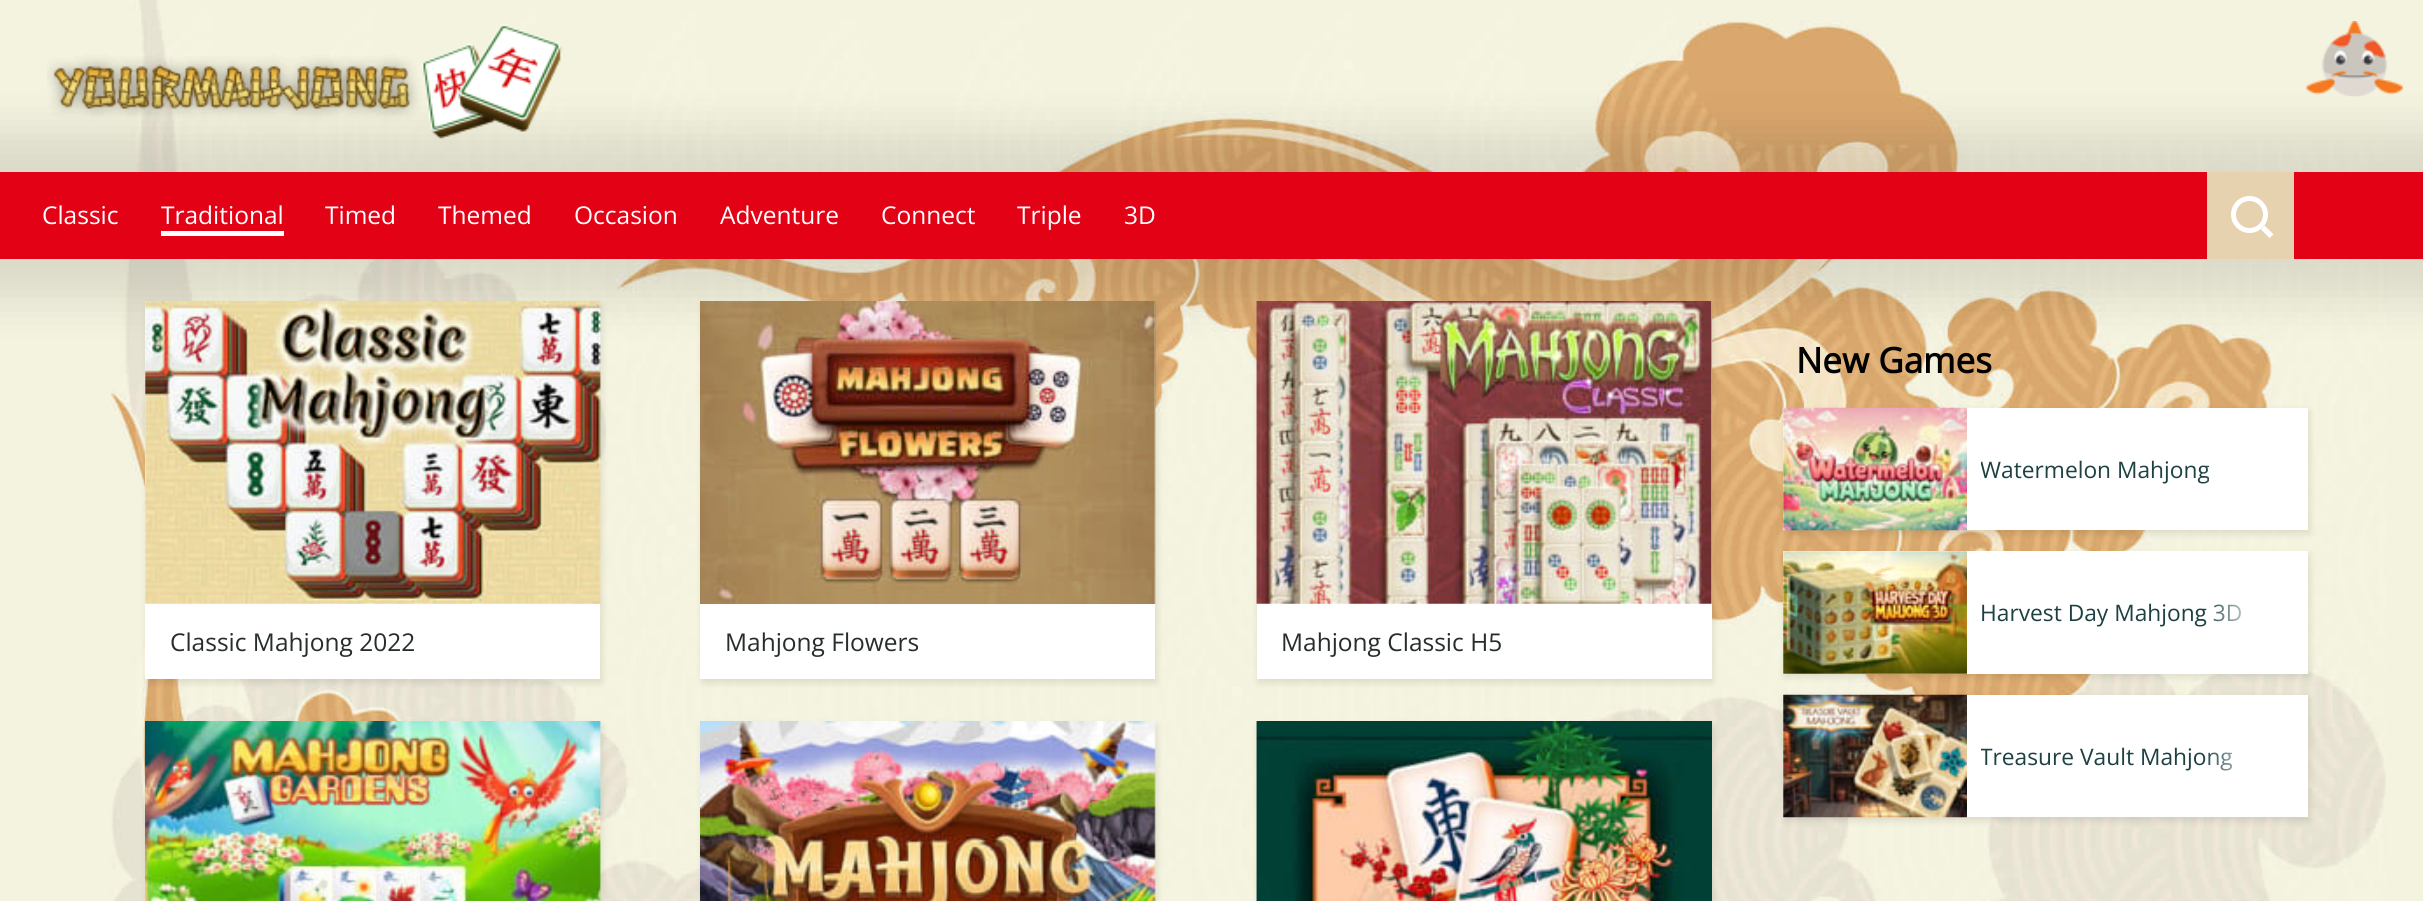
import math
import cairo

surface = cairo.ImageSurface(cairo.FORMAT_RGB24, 2423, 901)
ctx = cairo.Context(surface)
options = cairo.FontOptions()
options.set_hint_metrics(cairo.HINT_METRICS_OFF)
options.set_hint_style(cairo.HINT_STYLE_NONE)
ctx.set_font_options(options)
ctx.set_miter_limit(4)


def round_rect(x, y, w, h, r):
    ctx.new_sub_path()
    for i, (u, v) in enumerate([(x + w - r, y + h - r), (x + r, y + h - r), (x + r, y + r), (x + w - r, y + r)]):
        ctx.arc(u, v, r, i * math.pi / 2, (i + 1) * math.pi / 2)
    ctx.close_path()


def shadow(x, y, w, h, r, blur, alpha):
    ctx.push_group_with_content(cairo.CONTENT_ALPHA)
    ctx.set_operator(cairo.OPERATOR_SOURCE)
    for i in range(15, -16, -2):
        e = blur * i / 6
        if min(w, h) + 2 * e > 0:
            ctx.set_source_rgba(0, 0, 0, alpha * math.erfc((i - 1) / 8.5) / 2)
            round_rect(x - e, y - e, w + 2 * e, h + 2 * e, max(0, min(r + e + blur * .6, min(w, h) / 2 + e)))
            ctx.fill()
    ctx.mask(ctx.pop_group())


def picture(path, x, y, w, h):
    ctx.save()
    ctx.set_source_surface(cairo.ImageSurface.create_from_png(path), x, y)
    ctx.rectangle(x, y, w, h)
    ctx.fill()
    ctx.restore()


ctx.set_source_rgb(0.957, 0.953, 0.878)
ctx.paint()
picture("img1.png", 111, 0, 2275, 901)
ctx.set_source_rgb(0, 0, 0)
shadow(-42, 130, 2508, 171, 0, 21, 0.1)
picture("img2.png", 47, 24, 515, 115)
picture("img3.png", 2306, 21, 97, 76)
ctx.set_source_rgb(0.89, 0.004, 0.086)
ctx.rectangle(0, 172, 2423, 87)
ctx.fill()
ctx.select_font_face("Open Sans")
ctx.set_font_size(24.5)
ctx.set_source_rgb(1, 1, 1)
ctx.move_to(42, 224)
ctx.show_text("Classic")
ctx.move_to(161, 224)
ctx.show_text("Traditional")
ctx.rectangle(161, 231, 123, 5)
ctx.fill()
ctx.move_to(325, 224)
ctx.show_text("Timed")
ctx.move_to(438, 224)
ctx.show_text("Themed")
ctx.move_to(574, 224)
ctx.show_text("Occasion")
ctx.move_to(720, 224)
ctx.show_text("Adventure")
ctx.move_to(881, 224)
ctx.show_text("Connect")
ctx.move_to(1017, 224)
ctx.show_text("Triple")
ctx.move_to(1124, 224)
ctx.show_text("3D")
ctx.set_source_rgb(0.906, 0.824, 0.686)
ctx.rectangle(2207, 172, 87, 87)
ctx.fill()
ctx.arc(2249.5, 214.5, 16, 0, 2 * math.pi)
ctx.set_source_rgb(1, 1, 1)
ctx.set_line_width(5)
ctx.stroke()
ctx.new_path()
ctx.move_to(2261, 229.5)
ctx.line_to(2264.5, 225.5)
ctx.line_to(2273.5, 234.5)
ctx.line_to(2269.5, 238)
ctx.close_path()
ctx.fill()
ctx.set_source_rgb(0, 0, 0)
shadow(147, 305, 455, 378, 0, 3.5, 0.1)
ctx.set_source_rgb(1, 1, 1)
ctx.rectangle(145, 301, 455, 378)
ctx.fill()
picture("img4.png", 145, 301, 456, 303)
ctx.set_source_rgb(0.153, 0.176, 0.176)
ctx.move_to(170, 651)
ctx.show_text("Classic Mahjong 2022")
ctx.set_source_rgb(0, 0, 0)
shadow(702, 305, 455, 378, 0, 3.5, 0.1)
ctx.set_source_rgb(1, 1, 1)
ctx.rectangle(700, 301, 455, 378)
ctx.fill()
picture("img5.png", 700, 301, 456, 303)
ctx.set_source_rgb(0.153, 0.176, 0.176)
ctx.move_to(725, 651)
ctx.show_text("Mahjong Flowers")
ctx.set_source_rgb(0, 0, 0)
shadow(1258, 305, 455, 378, 0, 3.5, 0.1)
ctx.set_source_rgb(1, 1, 1)
ctx.rectangle(1257, 301, 455, 378)
ctx.fill()
picture("img6.png", 1256, 301, 456, 303)
ctx.set_source_rgb(0.153, 0.176, 0.176)
ctx.move_to(1281, 651)
ctx.show_text("Mahjong Classic H5")
ctx.set_source_rgb(0, 0, 0)
shadow(147, 725, 455, 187, 0, 3.5, 0.1)
picture("img7.png", 145, 721, 456, 180)
shadow(702, 725, 455, 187, 0, 3.5, 0.1)
picture("img8.png", 700, 721, 456, 180)
shadow(1258, 725, 455, 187, 0, 3.5, 0.1)
picture("img9.png", 1256, 721, 456, 180)
ctx.select_font_face("Open Sans", cairo.FONT_SLANT_NORMAL, cairo.FONT_WEIGHT_BOLD)
ctx.set_font_size(35)
ctx.set_source_rgb(0, 0, 0)
ctx.move_to(1796, 373)
ctx.show_text("New Games")
ctx.set_source_rgb(0, 0, 0)
shadow(1785, 411, 525, 123, 0, 3.5, 0.1)
ctx.set_source_rgb(1, 1, 1)
ctx.rectangle(1783, 408, 525, 122)
ctx.fill()
picture("img10.png", 1783, 407, 184, 124)
ctx.save()
ctx.rectangle(1981, 453, 229, 32)
ctx.clip()
ctx.select_font_face("Open Sans")
ctx.set_font_size(22.75)
ctx.set_source_rgb(0.114, 0.251, 0.259)
ctx.move_to(1980, 478)
ctx.show_text("Watermelon Mahjong")
ctx.restore()
gradient = cairo.LinearGradient(2203, 493, 2308, 493)
gradient.add_color_stop_rgba(0, 1, 1, 1, 0)
gradient.add_color_stop_rgba(0.5, 1, 1, 1, 0.89)
ctx.set_source(gradient)
ctx.rectangle(2204, 465, 6, 18)
ctx.fill()
ctx.set_source_rgb(0, 0, 0)
shadow(1785, 555, 525, 122, 0, 3.5, 0.1)
ctx.set_source_rgb(1, 1, 1)
ctx.rectangle(1783, 551, 525, 123)
ctx.fill()
picture("img11.png", 1783, 551, 184, 123)
ctx.select_font_face("Open Sans")
ctx.set_font_size(22.75)
ctx.set_source_rgb(0.114, 0.251, 0.259)
ctx.move_to(1980, 621)
ctx.show_text("Harvest Day Mahjong 3D")
gradient = cairo.LinearGradient(2203, 636, 2308, 636)
gradient.add_color_stop_rgba(0, 1, 1, 1, 0)
gradient.add_color_stop_rgba(0.5, 1, 1, 1, 0.89)
ctx.set_source(gradient)
ctx.rectangle(2204, 604, 38, 22)
ctx.fill()
ctx.set_source_rgb(0, 0, 0)
shadow(1785, 698, 525, 123, 0, 3.5, 0.1)
ctx.set_source_rgb(1, 1, 1)
ctx.rectangle(1783, 695, 525, 122)
ctx.fill()
picture("img12.png", 1783, 694, 184, 124)
ctx.save()
ctx.rectangle(1981, 740, 252, 32)
ctx.clip()
ctx.set_source_rgb(0.114, 0.251, 0.259)
ctx.move_to(1980, 765)
ctx.show_text("Treasure Vault Mahjong")
ctx.restore()
gradient = cairo.LinearGradient(2203, 780, 2308, 780)
gradient.add_color_stop_rgba(0, 1, 1, 1, 0)
gradient.add_color_stop_rgba(0.5, 1, 1, 1, 0.89)
ctx.set_source(gradient)
ctx.rectangle(2204, 752, 29, 19)
ctx.fill()
surface.write_to_png("page.png")
